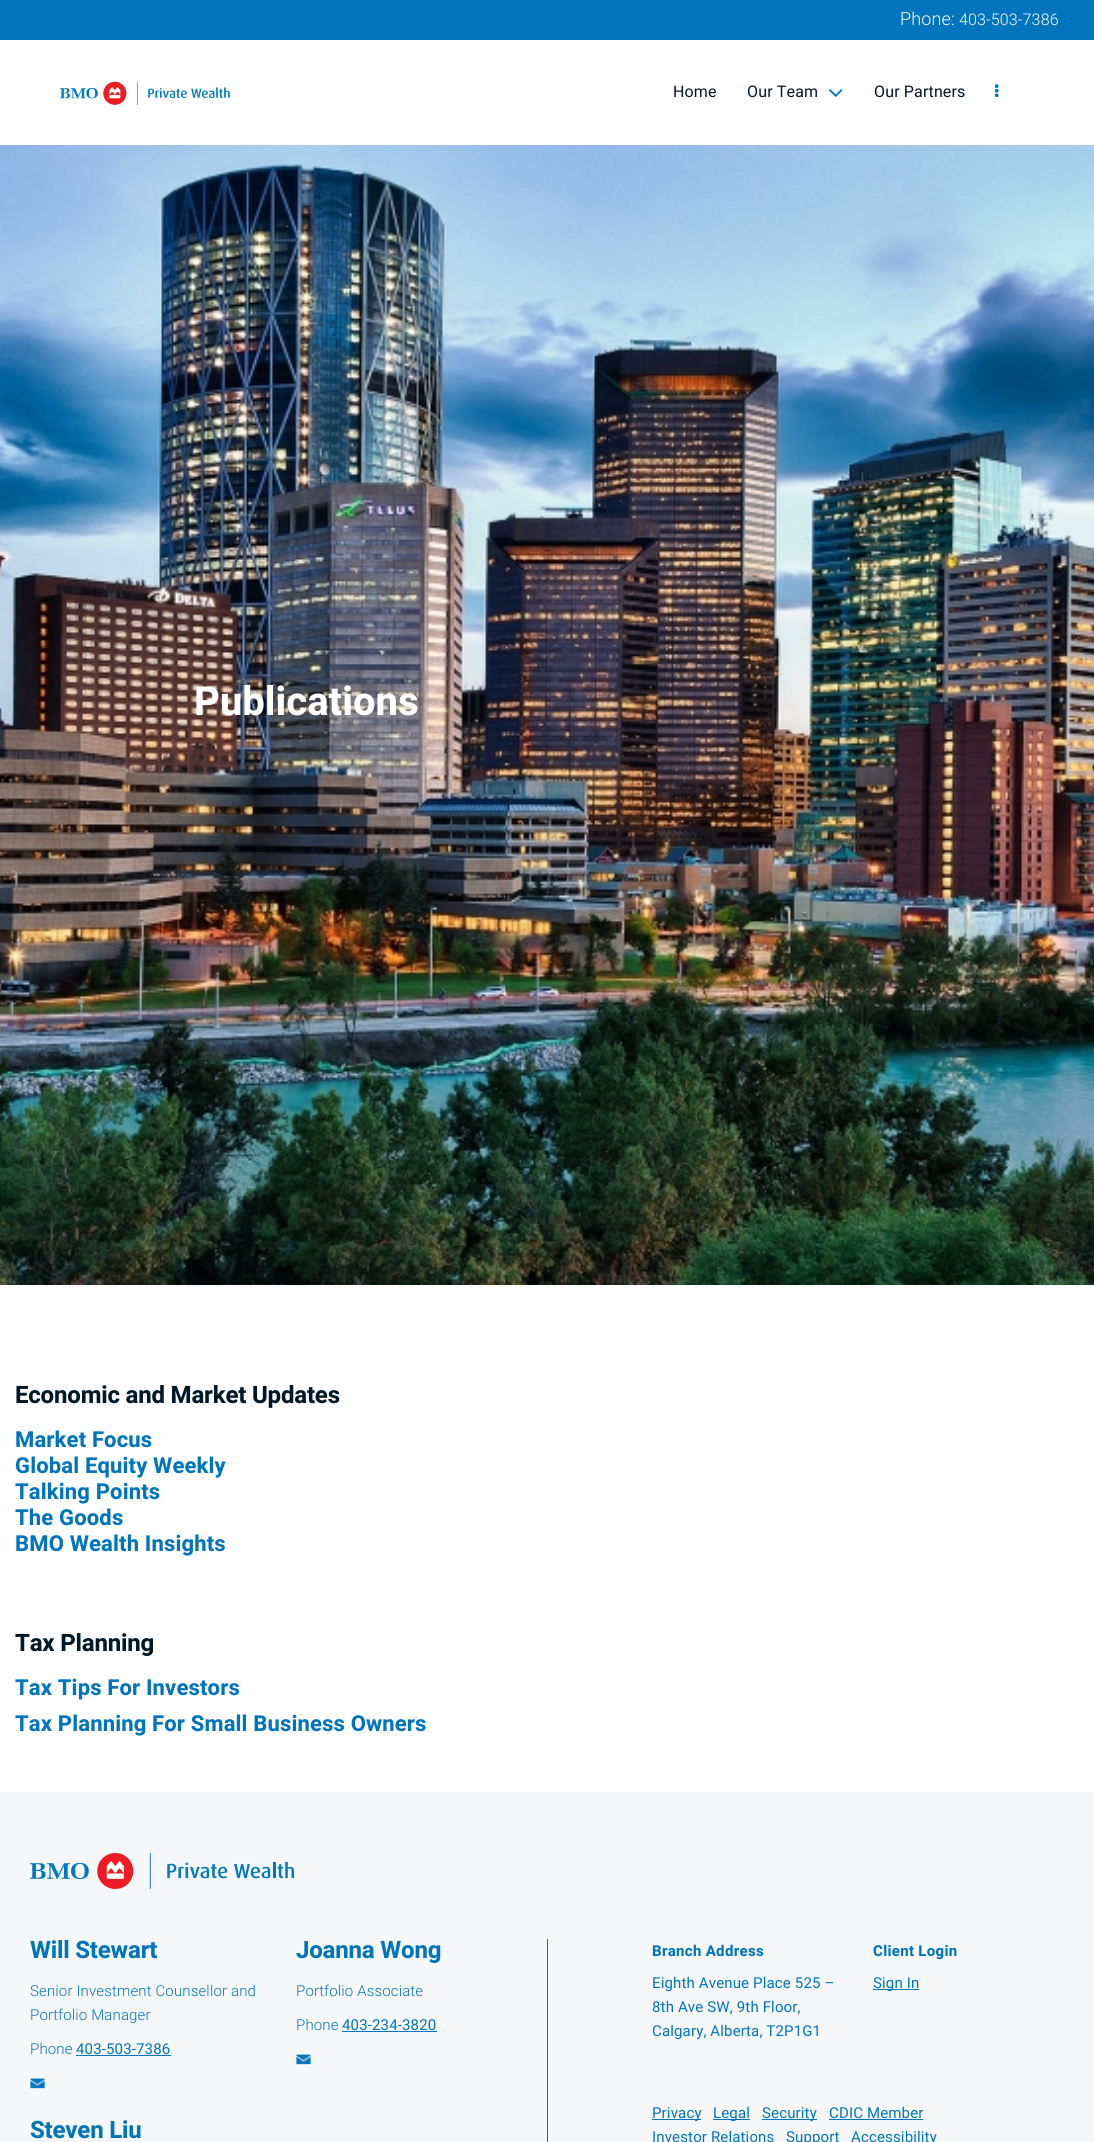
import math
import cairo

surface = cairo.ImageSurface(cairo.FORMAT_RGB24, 1094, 2142)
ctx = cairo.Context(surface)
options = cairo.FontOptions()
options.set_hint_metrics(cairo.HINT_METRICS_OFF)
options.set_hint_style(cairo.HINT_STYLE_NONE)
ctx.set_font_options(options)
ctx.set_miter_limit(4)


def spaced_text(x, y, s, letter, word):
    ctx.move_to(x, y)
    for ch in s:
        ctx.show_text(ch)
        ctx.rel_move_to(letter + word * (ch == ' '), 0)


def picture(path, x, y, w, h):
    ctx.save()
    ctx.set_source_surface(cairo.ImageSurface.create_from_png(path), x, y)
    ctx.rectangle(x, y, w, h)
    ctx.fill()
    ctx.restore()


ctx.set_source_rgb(1, 1, 1)
ctx.paint()
ctx.set_source_rgb(0, 0.459, 0.745)
ctx.rectangle(0, 0, 1094, 40)
ctx.fill()
ctx.select_font_face("Heebo Light")
ctx.set_font_size(18)
ctx.set_source_rgb(1, 1, 1)
spaced_text(900, 25, "Phone:", 0.15, 0)
ctx.set_font_size(16)
spaced_text(959, 25, "403-503-7386", 0.15, 0)
picture("img1.png", 60, 81, 170, 24)
ctx.select_font_face("Heebo")
ctx.set_source_rgb(0, 0.098, 0.157)
spaced_text(673, 97, "Home", 0.15, 0)
spaced_text(747, 97, "Our Team", 0.15, 0)
picture("img2.png", 829, 89, 14, 8)
spaced_text(874, 97, "Our Partners", 0.15, 0)
picture("img3.png", 995, 84, 4, 13)
picture("img4.png", 0, 145, 1094, 1140)
ctx.select_font_face("Heebo", cairo.FONT_SLANT_NORMAL, cairo.FONT_WEIGHT_BOLD)
ctx.set_font_size(40)
ctx.set_source_rgb(1, 1, 1)
ctx.move_to(194, 715)
ctx.show_text("Publications")
ctx.set_font_size(24)
ctx.set_source_rgb(0, 0.098, 0.157)
spaced_text(15, 1403, "Economic and Market Updates", -0.2, 0)
ctx.set_font_size(22)
ctx.set_source_rgb(0, 0.459, 0.745)
spaced_text(15, 1447, "Market Focus", 0.15, 0)
spaced_text(15, 1473, "Global Equity Weekly", 0.15, 0)
spaced_text(15, 1499, "Talking Points", 0.15, 0)
spaced_text(15, 1525, "The Goods", 0.15, 0)
spaced_text(15, 1551, "BMO Wealth Insights", 0.15, 0)
ctx.set_font_size(24)
ctx.set_source_rgb(0, 0.098, 0.157)
spaced_text(15, 1651, "Tax Planning", -0.2, 0)
ctx.set_font_size(22)
ctx.set_source_rgb(0, 0.459, 0.745)
spaced_text(15, 1695, "Tax Tips For Investors", 0.15, 0)
spaced_text(15, 1731, "Tax Planning For Small Business Owners", 0.15, 0)
ctx.set_source_rgb(0.961, 0.965, 0.969)
ctx.rectangle(0, 1792, 1094, 350)
ctx.fill()
picture("img5.png", 30, 1853, 265, 36)
ctx.set_font_size(24)
ctx.set_source_rgb(0, 0.459, 0.745)
spaced_text(30, 1958, "Will Stewart", -0.2, 0)
ctx.select_font_face("Heebo Light")
ctx.set_font_size(15)
spaced_text(30, 1996, "Senior Investment Counsellor and", 0.15, 0)
spaced_text(30, 2020, "Portfolio Manager", 0.15, 0)
spaced_text(30, 2054, "Phone", 0.15, 0)
ctx.select_font_face("Heebo")
spaced_text(76, 2054, "403-503-7386", 0.15, 0)
ctx.rectangle(76, 2055, 95, 1)
ctx.fill()
picture("img6.png", 30, 2078, 15, 11)
ctx.select_font_face("Heebo", cairo.FONT_SLANT_NORMAL, cairo.FONT_WEIGHT_BOLD)
ctx.set_font_size(24)
spaced_text(296, 1958, "Joanna Wong", -0.2, 0)
ctx.select_font_face("Heebo Light")
ctx.set_font_size(15)
spaced_text(296, 1996, "Portfolio Associate", 0.15, 0)
spaced_text(296, 2030, "Phone", 0.15, 0)
ctx.select_font_face("Heebo")
spaced_text(342, 2030, "403-234-3820", 0.15, 0)
ctx.rectangle(342, 2031, 95, 1)
ctx.fill()
picture("img6.png", 296, 2054, 15, 11)
ctx.select_font_face("Heebo", cairo.FONT_SLANT_NORMAL, cairo.FONT_WEIGHT_BOLD)
ctx.set_font_size(24)
spaced_text(30, 2138, "Steven Liu", -0.2, 0)
ctx.rectangle(547, 1939, 1, 203)
ctx.fill()
ctx.set_font_size(15)
spaced_text(652, 1956, "Branch Address", 0.3, 0)
ctx.select_font_face("Heebo")
spaced_text(652, 1988, "Eighth Avenue Place 525 –", 0.15, 0)
spaced_text(652, 2012, "8th Ave SW, 9th Floor,", 0.15, 0)
spaced_text(652, 2036, "Calgary, Alberta, T2P1G1", 0.15, 0)
ctx.select_font_face("Heebo", cairo.FONT_SLANT_NORMAL, cairo.FONT_WEIGHT_BOLD)
spaced_text(873, 1956, "Client Login", 0.3, 0)
ctx.rectangle(873, 1989, 46, 1)
ctx.fill()
ctx.select_font_face("Heebo")
spaced_text(873, 1988, "Sign In", 0.15, 0)
ctx.rectangle(652, 2119, 49, 1)
ctx.fill()
spaced_text(652, 2118, "Privacy", 0.15, 0)
ctx.rectangle(713, 2119, 37, 1)
ctx.fill()
spaced_text(713, 2118, "Legal", 0.15, 0)
ctx.rectangle(762, 2119, 55, 1)
ctx.fill()
spaced_text(762, 2118, "Security", 0.15, 0)
spaced_text(829, 2118, "CDIC Member", 0.15, 0)
ctx.rectangle(829, 2119, 94, 1)
ctx.fill()
spaced_text(652, 2142, "Investor Relations", 0.15, 0)
spaced_text(786, 2142, "Support", 0.15, 0)
spaced_text(851, 2142, "Accessibility", 0.15, 0)
surface.write_to_png("page.png")
